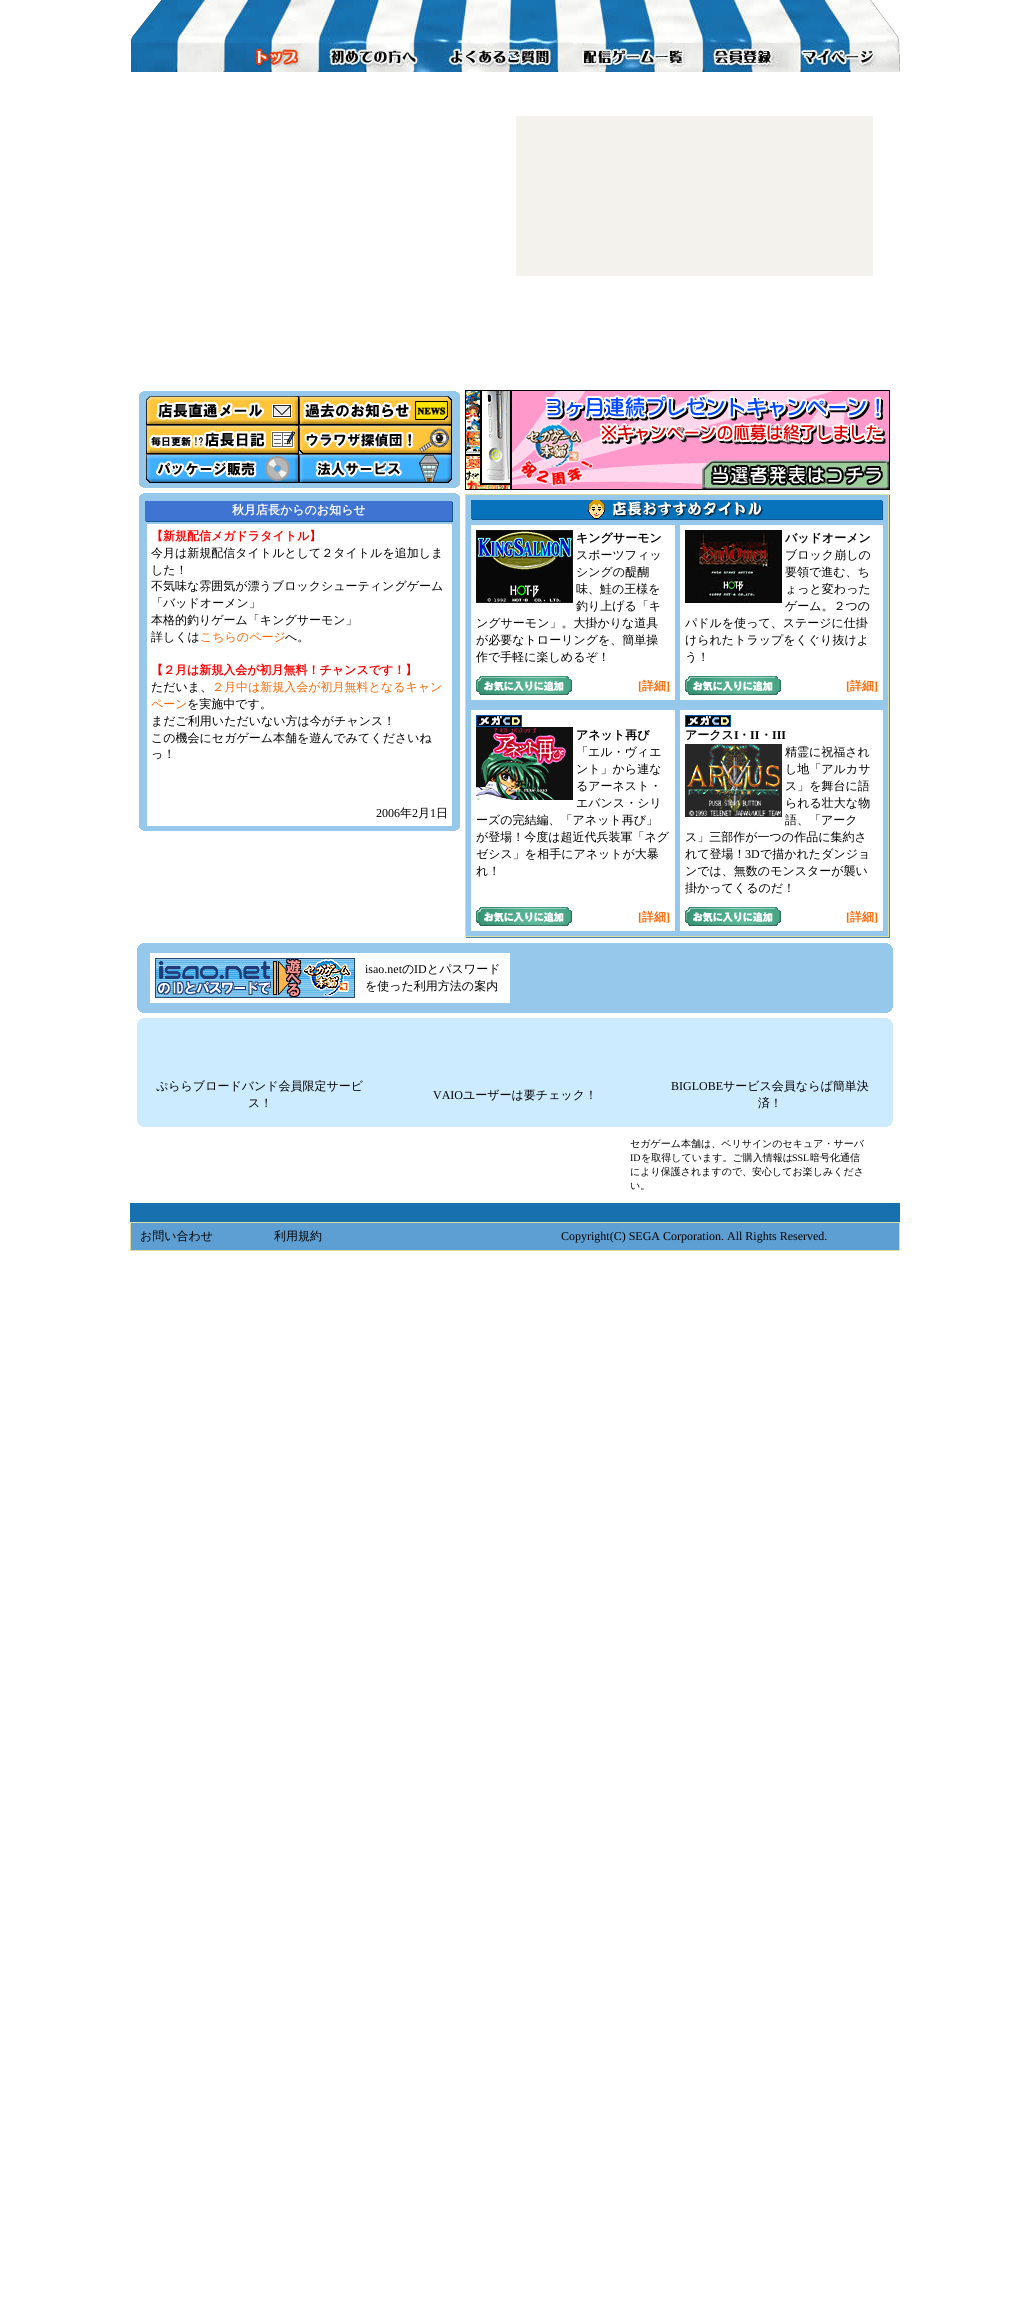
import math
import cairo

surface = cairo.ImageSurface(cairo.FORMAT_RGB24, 1030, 2316)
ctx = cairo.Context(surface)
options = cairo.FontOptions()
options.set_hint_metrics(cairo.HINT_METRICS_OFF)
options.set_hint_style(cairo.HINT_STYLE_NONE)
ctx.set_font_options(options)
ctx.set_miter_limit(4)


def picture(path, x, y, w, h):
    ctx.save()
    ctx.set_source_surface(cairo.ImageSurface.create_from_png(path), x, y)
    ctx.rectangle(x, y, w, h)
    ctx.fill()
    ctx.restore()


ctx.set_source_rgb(1, 1, 1)
ctx.paint()
picture("img1.png", 131, 0, 30, 43)
picture("img2.png", 161, 0, 709, 43)
picture("img3.png", 870, 0, 30, 43)
picture("img4.png", 130, 43, 116, 29)
picture("img5.png", 246, 43, 61, 29)
picture("img6.png", 307, 43, 14, 29)
picture("img7.png", 321, 43, 104, 29)
picture("img8.png", 425, 43, 19, 29)
picture("img9.png", 444, 43, 113, 29)
picture("img10.png", 557, 43, 16, 29)
picture("img11.png", 573, 43, 122, 29)
picture("img12.png", 695, 43, 11, 29)
picture("img13.png", 706, 43, 74, 29)
picture("img14.png", 780, 43, 13, 29)
picture("img15.png", 793, 43, 87, 29)
picture("img16.png", 880, 43, 20, 29)
ctx.set_source_rgb(0.953, 0.949, 0.929)
ctx.rectangle(516, 116, 357, 160)
ctx.fill()
ctx.set_source_rgb(0.588, 0.784, 0.925)
ctx.rectangle(139, 394, 321, 91)
ctx.fill()
ctx.rectangle(143, 391, 313, 1)
ctx.fill()
ctx.rectangle(141, 392, 317, 1)
ctx.fill()
ctx.rectangle(140, 393, 319, 1)
ctx.fill()
picture("img17.png", 146, 396, 153, 29)
picture("img18.png", 299, 396, 153, 29)
picture("img19.png", 146, 425, 153, 29)
picture("img20.png", 299, 425, 153, 29)
picture("img21.png", 146, 454, 153, 29)
picture("img22.png", 299, 454, 153, 29)
ctx.rectangle(140, 485, 319, 1)
ctx.fill()
ctx.rectangle(141, 486, 317, 1)
ctx.fill()
ctx.rectangle(143, 487, 313, 1)
ctx.fill()
ctx.rectangle(143, 493, 313, 1)
ctx.fill()
ctx.rectangle(141, 494, 317, 1)
ctx.fill()
ctx.rectangle(140, 495, 319, 1)
ctx.fill()
ctx.rectangle(139, 496, 321, 28)
ctx.fill()
ctx.set_source_rgb(0.251, 0.455, 0.824)
ctx.rectangle(145, 501, 307, 20)
ctx.fill()
ctx.select_font_face("WenQuanYi Zen Hei", cairo.FONT_SLANT_NORMAL, cairo.FONT_WEIGHT_BOLD)
ctx.set_font_size(12)
ctx.set_source_rgb(1, 1, 1)
ctx.move_to(232, 514)
ctx.show_text("秋月店長からのお知らせ")
ctx.set_source_rgb(0.071, 0.357, 0.565)
ctx.rectangle(452, 501, 1, 21)
ctx.fill()
ctx.set_source_rgb(0.588, 0.784, 0.925)
ctx.rectangle(452, 501, 1, 1)
ctx.fill()
ctx.set_source_rgb(0.071, 0.357, 0.565)
ctx.rectangle(145, 521, 308, 1)
ctx.fill()
ctx.set_source_rgb(0.588, 0.784, 0.925)
ctx.rectangle(145, 521, 1, 1)
ctx.fill()
ctx.rectangle(139, 524, 8, 302)
ctx.fill()
ctx.set_source_rgb(1, 0, 0)
ctx.move_to(151, 540)
ctx.show_text("【新規配信メガドラタイトル】")
ctx.select_font_face("WenQuanYi Zen Hei Medium")
ctx.set_source_rgb(0, 0, 0)
ctx.move_to(151, 557)
ctx.show_text("今月は新規配信タイトルとして２タイトルを追加しま")
ctx.move_to(151, 574)
ctx.show_text("した！")
ctx.move_to(151, 590)
ctx.show_text("不気味な雰囲気が漂うブロックシューティングゲーム")
ctx.move_to(151, 607)
ctx.show_text("「バッドオーメン」")
ctx.move_to(151, 624)
ctx.show_text("本格的釣りゲーム「キングサーモン」")
ctx.move_to(151, 641)
ctx.show_text("詳しくは")
ctx.set_source_rgb(1, 0.4, 0)
ctx.move_to(200, 641)
ctx.show_text("こちらのページ")
ctx.set_source_rgb(0, 0, 0)
ctx.move_to(285, 641)
ctx.show_text("へ。")
ctx.select_font_face("WenQuanYi Zen Hei", cairo.FONT_SLANT_NORMAL, cairo.FONT_WEIGHT_BOLD)
ctx.set_source_rgb(1, 0, 0)
ctx.move_to(151, 674)
ctx.show_text("【２月は新規入会が初月無料！チャンスです！】")
ctx.select_font_face("WenQuanYi Zen Hei Medium")
ctx.set_source_rgb(0, 0, 0)
ctx.move_to(151, 691)
ctx.show_text("ただいま、")
ctx.set_source_rgb(1, 0.4, 0)
ctx.move_to(212, 691)
ctx.show_text("２月中は新規入会が初月無料となるキャン")
ctx.move_to(151, 708)
ctx.show_text("ペーン")
ctx.set_source_rgb(0, 0, 0)
ctx.move_to(187, 708)
ctx.show_text("を実施中です。")
ctx.move_to(151, 725)
ctx.show_text("まだご利用いただいない方は今がチャンス！")
ctx.move_to(151, 742)
ctx.show_text("この機会にセガゲーム本舗を遊んでみてくださいね")
ctx.move_to(151, 758)
ctx.show_text("っ！")
ctx.select_font_face("Liberation Serif")
ctx.move_to(376, 817)
ctx.show_text("2006")
ctx.select_font_face("WenQuanYi Zen Hei Medium")
ctx.move_to(400, 817)
ctx.show_text("年")
ctx.select_font_face("Liberation Serif")
ctx.move_to(412, 817)
ctx.show_text("2")
ctx.select_font_face("WenQuanYi Zen Hei Medium")
ctx.move_to(418, 817)
ctx.show_text("月")
ctx.select_font_face("Liberation Serif")
ctx.move_to(430, 817)
ctx.show_text("1")
ctx.select_font_face("WenQuanYi Zen Hei Medium")
ctx.move_to(436, 817)
ctx.show_text("日")
ctx.set_source_rgb(0.588, 0.784, 0.925)
ctx.rectangle(452, 524, 8, 302)
ctx.fill()
ctx.rectangle(139, 826, 321, 2)
ctx.fill()
ctx.rectangle(140, 828, 319, 1)
ctx.fill()
ctx.rectangle(141, 829, 317, 1)
ctx.fill()
ctx.rectangle(143, 830, 313, 1)
ctx.fill()
picture("img23.png", 465, 390, 425, 100)
ctx.set_source_rgb(0.863, 0.867, 0.624)
ctx.rectangle(465, 494, 424, 443)
ctx.fill()
ctx.set_source_rgb(0.588, 0.784, 0.925)
ctx.rectangle(466, 495, 422, 441)
ctx.fill()
picture("img24.png", 471, 500, 412, 20)
ctx.set_source_rgb(1, 1, 1)
ctx.rectangle(471, 525, 204, 175)
ctx.fill()
picture("img25.png", 476, 530, 97, 73)
ctx.select_font_face("WenQuanYi Zen Hei", cairo.FONT_SLANT_NORMAL, cairo.FONT_WEIGHT_BOLD)
ctx.set_source_rgb(0, 0, 0)
ctx.move_to(576, 542)
ctx.show_text("キングサーモン")
ctx.select_font_face("WenQuanYi Zen Hei Medium")
ctx.move_to(576, 559)
ctx.show_text("スポーツフィッ")
ctx.move_to(576, 576)
ctx.show_text("シングの醍醐")
ctx.move_to(576, 593)
ctx.show_text("味、鮭の王様を")
ctx.move_to(576, 610)
ctx.show_text("釣り上げる「キ")
ctx.move_to(476, 627)
ctx.show_text("ングサーモン」。大掛かりな道具")
ctx.move_to(476, 644)
ctx.show_text("が必要なトローリングを、簡単操")
ctx.move_to(476, 661)
ctx.show_text("作で手軽に楽しめるぞ！")
ctx.set_source_rgb(1, 1, 1)
ctx.rectangle(680, 525, 203, 175)
ctx.fill()
picture("img26.png", 685, 530, 97, 73)
ctx.select_font_face("WenQuanYi Zen Hei", cairo.FONT_SLANT_NORMAL, cairo.FONT_WEIGHT_BOLD)
ctx.set_source_rgb(0, 0, 0)
ctx.move_to(785, 542)
ctx.show_text("バッドオーメン")
ctx.select_font_face("WenQuanYi Zen Hei Medium")
ctx.move_to(785, 559)
ctx.show_text("ブロック崩しの")
ctx.move_to(785, 576)
ctx.show_text("要領で進む、ち")
ctx.move_to(785, 593)
ctx.show_text("ょっと変わった")
ctx.move_to(785, 610)
ctx.show_text("ゲーム。２つの")
ctx.move_to(685, 627)
ctx.show_text("パドルを使って、ステージに仕掛")
ctx.move_to(685, 644)
ctx.show_text("けられたトラップをくぐり抜けよ")
ctx.move_to(685, 661)
ctx.show_text("う！")
picture("img27.png", 476, 676, 96, 19)
ctx.select_font_face("Liberation Serif", cairo.FONT_SLANT_NORMAL, cairo.FONT_WEIGHT_BOLD)
ctx.set_source_rgb(1, 0.4, 0)
ctx.move_to(638, 690)
ctx.show_text("[")
ctx.select_font_face("WenQuanYi Zen Hei", cairo.FONT_SLANT_NORMAL, cairo.FONT_WEIGHT_BOLD)
ctx.move_to(642, 690)
ctx.show_text("詳細")
ctx.select_font_face("Liberation Serif", cairo.FONT_SLANT_NORMAL, cairo.FONT_WEIGHT_BOLD)
ctx.move_to(666, 690)
ctx.show_text("]")
picture("img27.png", 685, 676, 96, 19)
ctx.move_to(846, 690)
ctx.show_text("[")
ctx.select_font_face("WenQuanYi Zen Hei", cairo.FONT_SLANT_NORMAL, cairo.FONT_WEIGHT_BOLD)
ctx.move_to(850, 690)
ctx.show_text("詳細")
ctx.select_font_face("Liberation Serif", cairo.FONT_SLANT_NORMAL, cairo.FONT_WEIGHT_BOLD)
ctx.move_to(874, 690)
ctx.show_text("]")
ctx.set_source_rgb(1, 1, 1)
ctx.rectangle(471, 710, 204, 221)
ctx.fill()
picture("img28.png", 476, 715, 46, 12)
picture("img29.png", 476, 727, 97, 73)
ctx.select_font_face("WenQuanYi Zen Hei", cairo.FONT_SLANT_NORMAL, cairo.FONT_WEIGHT_BOLD)
ctx.set_source_rgb(0, 0, 0)
ctx.move_to(576, 739)
ctx.show_text("アネット再び")
ctx.select_font_face("WenQuanYi Zen Hei Medium")
ctx.move_to(576, 756)
ctx.show_text("「エル・ヴィエ")
ctx.move_to(576, 773)
ctx.show_text("ント」から連な")
ctx.move_to(576, 790)
ctx.show_text("るアーネスト・")
ctx.move_to(576, 807)
ctx.show_text("エバンス・シリ")
ctx.move_to(476, 824)
ctx.show_text("ーズの完結編、「アネット再び」")
ctx.move_to(476, 841)
ctx.show_text("が登場！今度は超近代兵装軍「ネグ")
ctx.move_to(476, 858)
ctx.show_text("ゼシス」を相手にアネットが大暴")
ctx.move_to(476, 875)
ctx.show_text("れ！")
ctx.set_source_rgb(1, 1, 1)
ctx.rectangle(680, 710, 203, 221)
ctx.fill()
picture("img28.png", 685, 715, 46, 12)
ctx.select_font_face("WenQuanYi Zen Hei", cairo.FONT_SLANT_NORMAL, cairo.FONT_WEIGHT_BOLD)
ctx.set_source_rgb(0, 0, 0)
ctx.move_to(685, 739)
ctx.show_text("アークス")
ctx.select_font_face("Liberation Serif", cairo.FONT_SLANT_NORMAL, cairo.FONT_WEIGHT_BOLD)
ctx.move_to(734, 739)
ctx.show_text("I")
ctx.select_font_face("WenQuanYi Zen Hei", cairo.FONT_SLANT_NORMAL, cairo.FONT_WEIGHT_BOLD)
ctx.move_to(738, 739)
ctx.show_text("・")
ctx.select_font_face("Liberation Serif", cairo.FONT_SLANT_NORMAL, cairo.FONT_WEIGHT_BOLD)
ctx.move_to(750, 739)
ctx.show_text("II")
ctx.select_font_face("WenQuanYi Zen Hei", cairo.FONT_SLANT_NORMAL, cairo.FONT_WEIGHT_BOLD)
ctx.move_to(760, 739)
ctx.show_text("・")
ctx.select_font_face("Liberation Serif", cairo.FONT_SLANT_NORMAL, cairo.FONT_WEIGHT_BOLD)
ctx.move_to(772, 739)
ctx.show_text("III")
picture("img30.png", 685, 744, 97, 73)
ctx.select_font_face("WenQuanYi Zen Hei Medium")
ctx.move_to(785, 756)
ctx.show_text("精霊に祝福され")
ctx.move_to(785, 773)
ctx.show_text("し地「アルカサ")
ctx.move_to(785, 790)
ctx.show_text("ス」を舞台に語")
ctx.move_to(785, 807)
ctx.show_text("られる壮大な物")
ctx.move_to(785, 824)
ctx.show_text("語、「アーク")
ctx.move_to(685, 841)
ctx.show_text("ス」三部作が一つの作品に集約さ")
ctx.move_to(685, 858)
ctx.show_text("れて登場！")
ctx.select_font_face("Liberation Serif")
ctx.move_to(745, 858)
ctx.show_text("3D")
ctx.select_font_face("WenQuanYi Zen Hei Medium")
ctx.move_to(760, 858)
ctx.show_text("で描かれたダンジョ")
ctx.move_to(685, 875)
ctx.show_text("ンでは、無数のモンスターが襲い")
ctx.move_to(685, 892)
ctx.show_text("掛かってくるのだ！")
picture("img27.png", 476, 907, 96, 19)
ctx.select_font_face("Liberation Serif", cairo.FONT_SLANT_NORMAL, cairo.FONT_WEIGHT_BOLD)
ctx.set_source_rgb(1, 0.4, 0)
ctx.move_to(638, 921)
ctx.show_text("[")
ctx.select_font_face("WenQuanYi Zen Hei", cairo.FONT_SLANT_NORMAL, cairo.FONT_WEIGHT_BOLD)
ctx.move_to(642, 921)
ctx.show_text("詳細")
ctx.select_font_face("Liberation Serif", cairo.FONT_SLANT_NORMAL, cairo.FONT_WEIGHT_BOLD)
ctx.move_to(666, 921)
ctx.show_text("]")
picture("img27.png", 685, 907, 96, 19)
ctx.move_to(846, 921)
ctx.show_text("[")
ctx.select_font_face("WenQuanYi Zen Hei", cairo.FONT_SLANT_NORMAL, cairo.FONT_WEIGHT_BOLD)
ctx.move_to(850, 921)
ctx.show_text("詳細")
ctx.select_font_face("Liberation Serif", cairo.FONT_SLANT_NORMAL, cairo.FONT_WEIGHT_BOLD)
ctx.move_to(874, 921)
ctx.show_text("]")
ctx.set_source_rgb(0.286, 0.529, 0.702)
ctx.rectangle(889, 494, 1, 443)
ctx.fill()
ctx.set_source_rgb(1, 1, 1)
ctx.rectangle(889, 494, 1, 1)
ctx.fill()
ctx.set_source_rgb(0.286, 0.529, 0.702)
ctx.rectangle(465, 937, 425, 1)
ctx.fill()
ctx.set_source_rgb(1, 1, 1)
ctx.rectangle(465, 937, 1, 1)
ctx.fill()
ctx.set_source_rgb(0.588, 0.784, 0.925)
ctx.rectangle(142, 943, 746, 1)
ctx.fill()
ctx.rectangle(140, 944, 750, 1)
ctx.fill()
ctx.rectangle(139, 945, 752, 1)
ctx.fill()
ctx.rectangle(138, 946, 754, 2)
ctx.fill()
ctx.rectangle(137, 948, 756, 60)
ctx.fill()
ctx.set_source_rgb(1, 1, 1)
ctx.rectangle(150, 953, 360, 50)
ctx.fill()
picture("img31.png", 155, 958, 200, 40)
ctx.select_font_face("Liberation Serif")
ctx.set_source_rgb(0, 0, 0)
ctx.move_to(365, 973)
ctx.show_text("isao.net")
ctx.select_font_face("WenQuanYi Zen Hei Medium")
ctx.move_to(402, 973)
ctx.show_text("の")
ctx.select_font_face("Liberation Serif")
ctx.move_to(414, 973)
ctx.show_text("ID")
ctx.select_font_face("WenQuanYi Zen Hei Medium")
ctx.move_to(427, 973)
ctx.show_text("とパスワード")
ctx.move_to(365, 990)
ctx.show_text("を使った利用方法の案内")
ctx.set_source_rgb(0.588, 0.784, 0.925)
ctx.rectangle(138, 1008, 754, 2)
ctx.fill()
ctx.rectangle(139, 1010, 752, 1)
ctx.fill()
ctx.rectangle(140, 1011, 750, 1)
ctx.fill()
ctx.rectangle(142, 1012, 746, 1)
ctx.fill()
ctx.set_source_rgb(0.804, 0.918, 1)
ctx.rectangle(142, 1018, 746, 1)
ctx.fill()
ctx.rectangle(140, 1019, 750, 1)
ctx.fill()
ctx.rectangle(139, 1020, 752, 1)
ctx.fill()
ctx.rectangle(138, 1021, 754, 2)
ctx.fill()
ctx.rectangle(137, 1023, 756, 99)
ctx.fill()
ctx.set_source_rgb(0, 0, 0)
ctx.move_to(156, 1090)
ctx.show_text("ぷららブロードバンド会員限定サービ")
ctx.move_to(248, 1107)
ctx.show_text("ス！")
ctx.select_font_face("Liberation Serif")
ctx.move_to(433, 1099)
ctx.show_text("VAIO")
ctx.select_font_face("WenQuanYi Zen Hei Medium")
ctx.move_to(463, 1099)
ctx.show_text("ユーザーは要チェック！")
ctx.select_font_face("Liberation Serif")
ctx.move_to(671, 1090)
ctx.show_text("BIGLOBE")
ctx.select_font_face("WenQuanYi Zen Hei Medium")
ctx.move_to(723, 1090)
ctx.show_text("サービス会員ならば簡単決")
ctx.move_to(758, 1107)
ctx.show_text("済！")
ctx.set_source_rgb(0.804, 0.918, 1)
ctx.rectangle(138, 1122, 754, 2)
ctx.fill()
ctx.rectangle(139, 1124, 752, 1)
ctx.fill()
ctx.rectangle(140, 1125, 750, 1)
ctx.fill()
ctx.rectangle(142, 1126, 746, 1)
ctx.fill()
ctx.set_font_size(10)
ctx.set_source_rgb(0, 0, 0)
ctx.move_to(630, 1147)
ctx.show_text("セガゲーム本舗は、ベリサインのセキュア・サーバ")
ctx.select_font_face("Liberation Serif")
ctx.move_to(630, 1161)
ctx.show_text("ID")
ctx.select_font_face("WenQuanYi Zen Hei Medium")
ctx.move_to(641, 1161)
ctx.show_text("を取得しています。ご購入情報は")
ctx.select_font_face("Liberation Serif")
ctx.move_to(792, 1161)
ctx.show_text("SSL")
ctx.select_font_face("WenQuanYi Zen Hei Medium")
ctx.move_to(810, 1161)
ctx.show_text("暗号化通信")
ctx.move_to(630, 1175)
ctx.show_text("により保護されますので、安心してお楽しみくださ")
ctx.move_to(630, 1189)
ctx.show_text("い。")
ctx.set_source_rgb(0.09, 0.443, 0.682)
ctx.rectangle(130, 1203, 770, 19)
ctx.fill()
ctx.set_source_rgb(0.863, 0.867, 0.624)
ctx.rectangle(130, 1222, 770, 29)
ctx.fill()
ctx.set_source_rgb(0.369, 0.624, 0.827)
ctx.rectangle(131, 1223, 768, 27)
ctx.fill()
ctx.set_font_size(12)
ctx.set_source_rgb(0, 0, 0)
ctx.move_to(140, 1240)
ctx.show_text("お問い合わせ")
ctx.move_to(274, 1240)
ctx.show_text("利用規約")
ctx.select_font_face("Liberation Serif")
ctx.move_to(561, 1240)
ctx.show_text("Copyright(C) SEGA Corporation. All Rights Reserved.")
surface.write_to_png("page.png")
